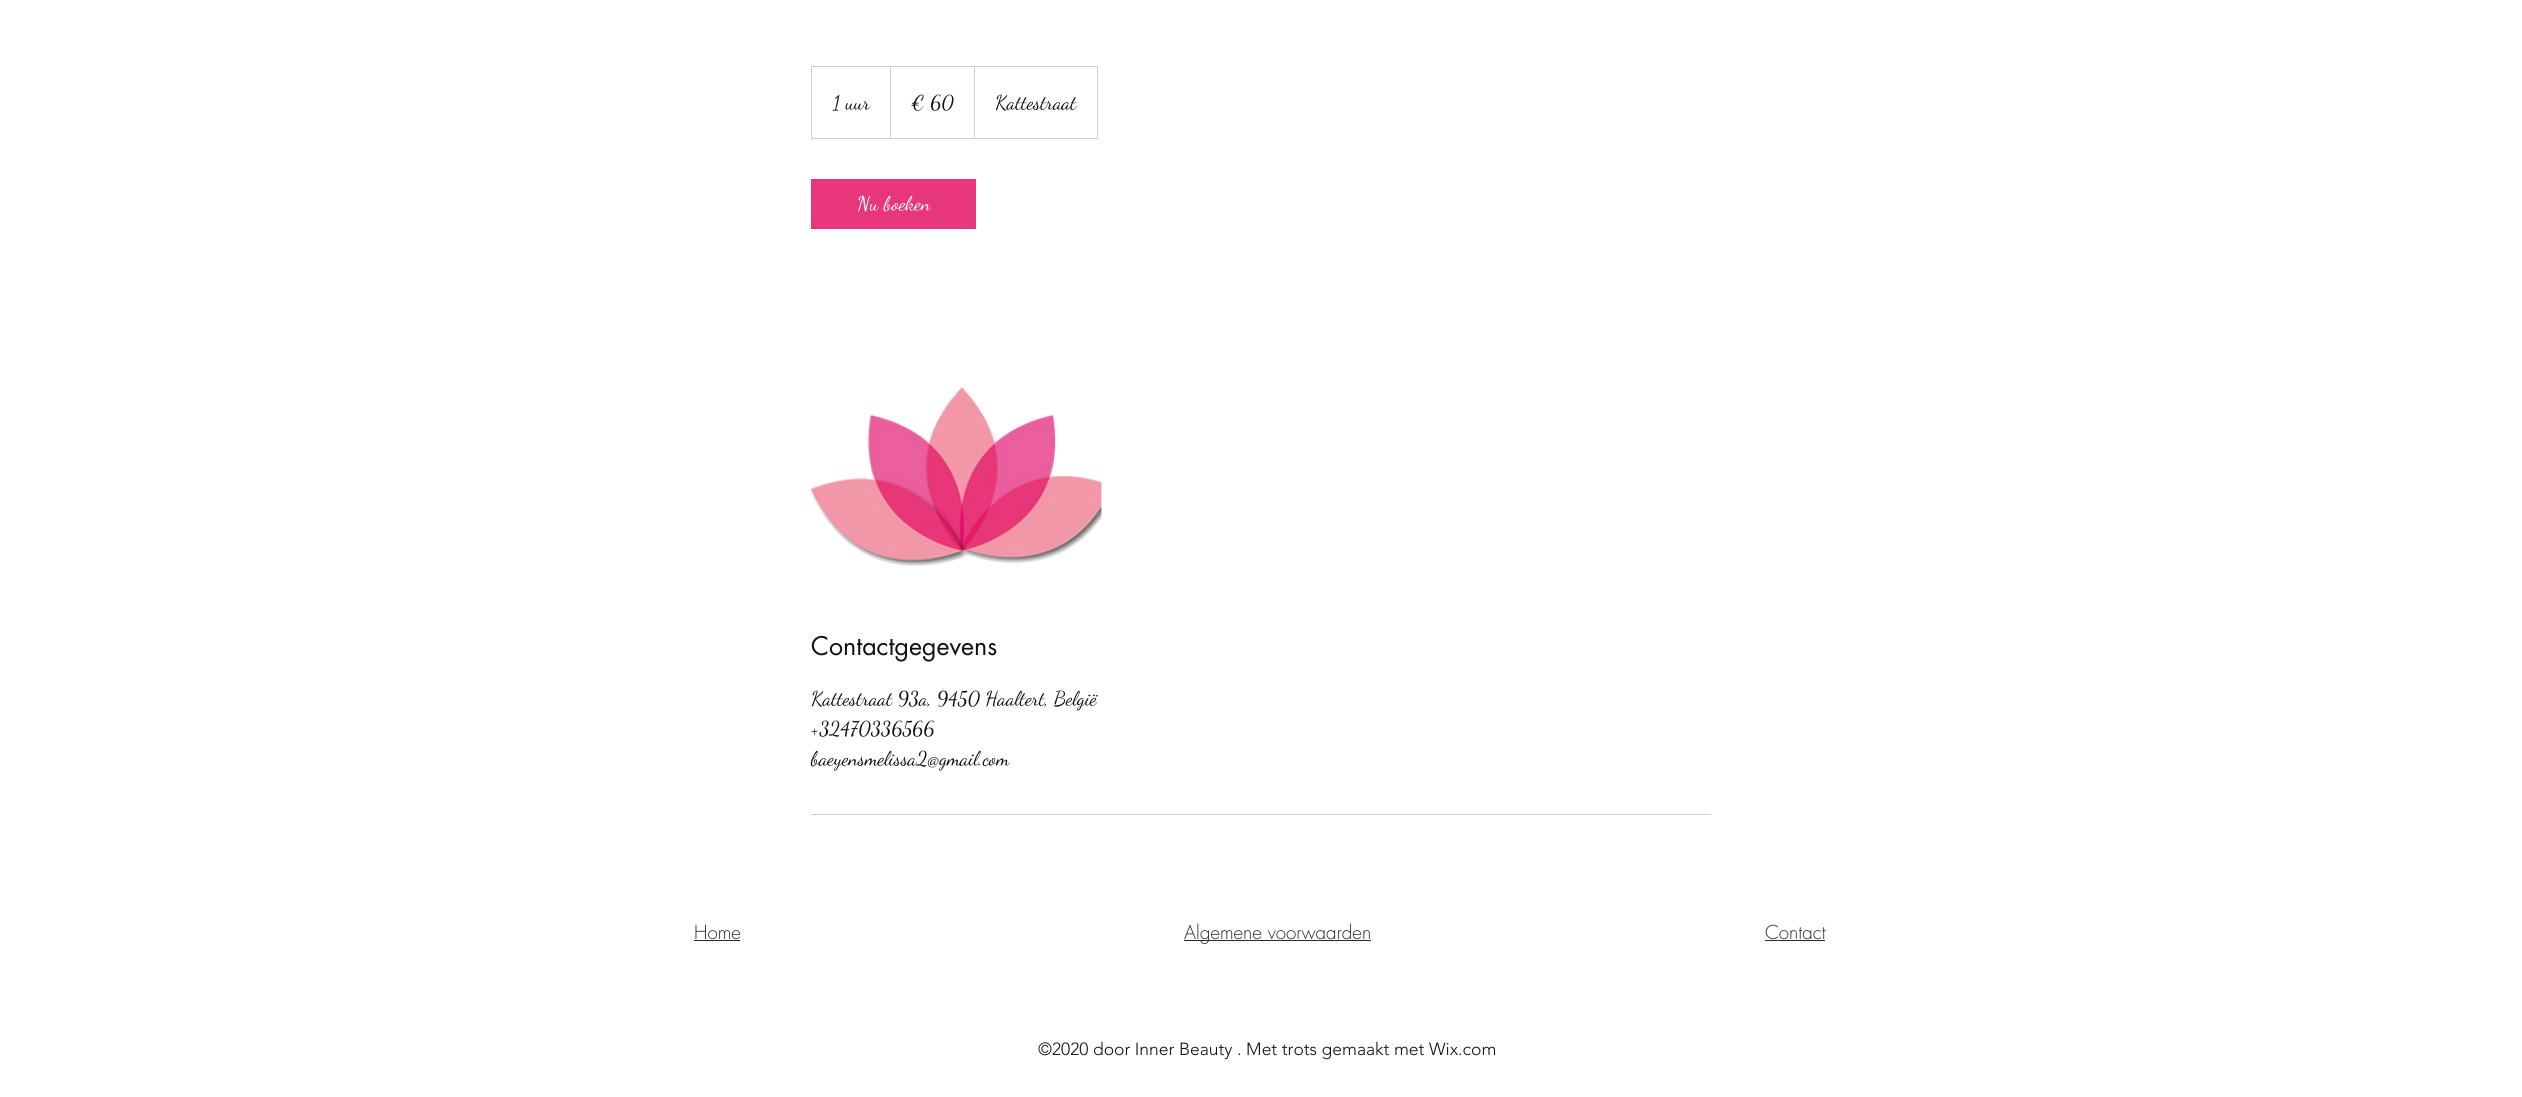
import math
import cairo

surface = cairo.ImageSurface(cairo.FORMAT_RGB24, 2522, 1097)
ctx = cairo.Context(surface)
options = cairo.FontOptions()
options.set_hint_metrics(cairo.HINT_METRICS_OFF)
options.set_hint_style(cairo.HINT_STYLE_NONE)
ctx.set_font_options(options)
ctx.set_miter_limit(4)


def picture(path, x, y, w, h):
    ctx.save()
    ctx.set_source_surface(cairo.ImageSurface.create_from_png(path), x, y)
    ctx.rectangle(x, y, w, h)
    ctx.fill()
    ctx.restore()


ctx.set_source_rgb(1, 1, 1)
ctx.paint()
ctx.rectangle(811.5, 66.5, 286, 72)
ctx.set_source_rgb(0.816, 0.812, 0.816)
ctx.set_line_width(1)
ctx.stroke()
ctx.select_font_face("Dancing Script")
ctx.set_font_size(20)
ctx.set_source_rgb(0.071, 0.067, 0.071)
ctx.move_to(833, 109)
ctx.show_text("1 uur")
ctx.set_source_rgb(0.816, 0.812, 0.816)
ctx.new_path()
ctx.move_to(890, 138)
ctx.line_to(890, 66)
ctx.line_to(891, 68)
ctx.line_to(891, 138)
ctx.close_path()
ctx.fill()
ctx.set_source_rgb(0.071, 0.067, 0.071)
ctx.move_to(911, 109)
ctx.show_text("€ 60")
ctx.set_source_rgb(0.816, 0.812, 0.816)
ctx.new_path()
ctx.move_to(974, 138)
ctx.line_to(974, 66)
ctx.line_to(975, 68)
ctx.line_to(975, 138)
ctx.close_path()
ctx.fill()
ctx.set_source_rgb(0.071, 0.067, 0.071)
ctx.move_to(995, 109)
ctx.show_text("Kattestraat")
ctx.set_source_rgb(0.91, 0.212, 0.482)
ctx.rectangle(811, 179, 165, 50)
ctx.fill()
ctx.set_source_rgb(1, 1, 1)
ctx.move_to(857, 210)
ctx.show_text("Nu boeken")
picture("img1.png", 811, 387, 291, 179)
picture("img2.png", 811, 387, 291, 179)
ctx.select_font_face("futura")
ctx.set_font_size(25)
ctx.set_source_rgb(0.071, 0.067, 0.071)
ctx.move_to(811, 655)
ctx.show_text("Contactgegevens")
ctx.select_font_face("Dancing Script")
ctx.set_font_size(20)
ctx.move_to(811, 705)
ctx.show_text("Kattestraat 93a, 9450 Haaltert, België")
ctx.move_to(811, 735)
ctx.show_text("+32470336566")
ctx.move_to(811, 765)
ctx.show_text("baeyensmelissa2@gmail.com")
ctx.set_source_rgb(0.816, 0.812, 0.816)
ctx.rectangle(811, 814, 900, 1)
ctx.fill()
ctx.select_font_face("futura Light")
ctx.set_font_size(18.75)
ctx.set_source_rgb(0.161, 0.161, 0.161)
ctx.move_to(694, 939)
ctx.show_text("Home")
ctx.rectangle(694, 940, 46, 1)
ctx.fill()
ctx.rectangle(1184, 940, 187, 1)
ctx.fill()
ctx.move_to(1184, 939)
ctx.show_text("Algemene voorwaarden")
ctx.move_to(1765, 939)
ctx.show_text("Contact")
ctx.rectangle(1765, 940, 60, 1)
ctx.fill()
ctx.select_font_face("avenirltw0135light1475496 Light")
ctx.set_font_size(17.5)
ctx.set_source_rgb(0.071, 0.067, 0.071)
ctx.move_to(1038, 1055)
ctx.show_text("©2020 door Inner Beauty . Met trots gemaakt met Wix.com")
surface.write_to_png("page.png")
